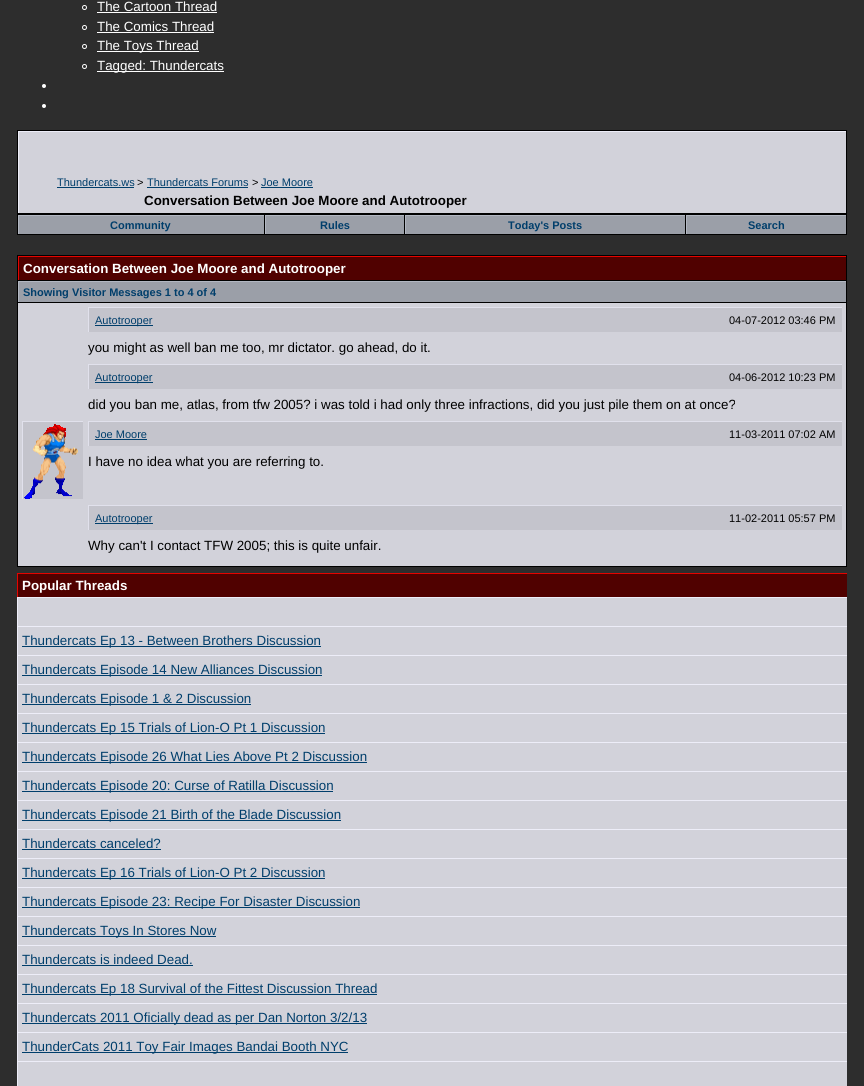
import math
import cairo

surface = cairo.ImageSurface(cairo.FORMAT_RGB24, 864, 1086)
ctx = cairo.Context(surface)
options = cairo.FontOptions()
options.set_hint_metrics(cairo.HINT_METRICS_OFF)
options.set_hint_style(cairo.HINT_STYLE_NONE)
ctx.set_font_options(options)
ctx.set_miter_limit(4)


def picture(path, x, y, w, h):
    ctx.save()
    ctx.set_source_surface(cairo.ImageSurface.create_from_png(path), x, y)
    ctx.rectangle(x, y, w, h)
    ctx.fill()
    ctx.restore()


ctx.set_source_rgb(0.176, 0.176, 0.176)
ctx.paint()
ctx.arc(84.5, 7.5, 2, 0, 2 * math.pi)
ctx.set_source_rgb(1, 1, 1)
ctx.set_line_width(1)
ctx.stroke()
ctx.select_font_face("Liberation Sans")
ctx.set_font_size(13.35)
ctx.move_to(97, 11)
ctx.show_text("The Cartoon Thread")
ctx.rectangle(97, 12, 120, 1)
ctx.fill()
ctx.arc(84.5, 27.5, 2, 0, 2 * math.pi)
ctx.stroke()
ctx.move_to(97, 31)
ctx.show_text("The Comics Thread")
ctx.rectangle(97, 32, 117, 1)
ctx.fill()
ctx.arc(84.5, 46.5, 2, 0, 2 * math.pi)
ctx.stroke()
ctx.rectangle(97, 51, 102, 1)
ctx.fill()
ctx.move_to(97, 50)
ctx.show_text("The Toys Thread")
ctx.new_path()
ctx.arc(84.5, 66.5, 2, 0, 2 * math.pi)
ctx.stroke()
ctx.rectangle(97, 71, 127, 1)
ctx.fill()
ctx.move_to(97, 70)
ctx.show_text("Tagged: Thundercats")
ctx.new_path()
ctx.arc(44, 86, 2, 0, 2 * math.pi)
ctx.fill()
ctx.arc(44, 106, 2, 0, 2 * math.pi)
ctx.fill()
ctx.set_source_rgb(0, 0, 0)
ctx.rectangle(17, 130, 830, 105)
ctx.fill()
ctx.set_source_rgb(0.824, 0.824, 0.855)
ctx.rectangle(19, 132, 827, 81)
ctx.fill()
ctx.set_source_rgb(0.929, 0.929, 0.969)
ctx.rectangle(18, 131, 828, 1)
ctx.fill()
ctx.rectangle(18, 131, 1, 82)
ctx.fill()
ctx.set_font_size(11)
ctx.set_source_rgb(0, 0.243, 0.42)
ctx.move_to(57, 186)
ctx.show_text("Thundercats.ws")
ctx.rectangle(57, 187, 77, 1)
ctx.fill()
ctx.set_source_rgb(0, 0, 0)
ctx.move_to(137, 186)
ctx.show_text(">")
ctx.set_source_rgb(0, 0.243, 0.42)
ctx.move_to(147, 186)
ctx.show_text("Thundercats Forums")
ctx.rectangle(147, 187, 101, 1)
ctx.fill()
ctx.set_source_rgb(0, 0, 0)
ctx.move_to(252, 186)
ctx.show_text(">")
ctx.set_source_rgb(0, 0.243, 0.42)
ctx.move_to(261, 186)
ctx.show_text("Joe Moore")
ctx.rectangle(261, 187, 52, 1)
ctx.fill()
ctx.select_font_face("Liberation Sans", cairo.FONT_SLANT_NORMAL, cairo.FONT_WEIGHT_BOLD)
ctx.set_font_size(13.35)
ctx.set_source_rgb(0, 0, 0)
ctx.move_to(144, 205)
ctx.show_text("Conversation Between Joe Moore and Autotrooper")
ctx.set_source_rgb(0.608, 0.624, 0.659)
ctx.rectangle(19, 216, 245, 18)
ctx.fill()
ctx.set_source_rgb(0.698, 0.718, 0.761)
ctx.rectangle(18, 215, 246, 1)
ctx.fill()
ctx.rectangle(18, 215, 1, 19)
ctx.fill()
ctx.set_font_size(11)
ctx.set_source_rgb(0, 0.243, 0.42)
ctx.move_to(110, 229)
ctx.show_text("Community")
ctx.set_source_rgb(0.608, 0.624, 0.659)
ctx.rectangle(266, 216, 138, 18)
ctx.fill()
ctx.set_source_rgb(0.698, 0.718, 0.761)
ctx.rectangle(265, 215, 139, 1)
ctx.fill()
ctx.rectangle(265, 215, 1, 19)
ctx.fill()
ctx.set_source_rgb(0, 0.243, 0.42)
ctx.move_to(320, 229)
ctx.show_text("Rules")
ctx.set_source_rgb(0.608, 0.624, 0.659)
ctx.rectangle(406, 216, 279, 18)
ctx.fill()
ctx.set_source_rgb(0.698, 0.718, 0.761)
ctx.rectangle(405, 215, 280, 1)
ctx.fill()
ctx.rectangle(405, 215, 1, 19)
ctx.fill()
ctx.set_source_rgb(0, 0.243, 0.42)
ctx.move_to(508, 229)
ctx.show_text("Today's Posts")
ctx.set_source_rgb(0.608, 0.624, 0.659)
ctx.rectangle(687, 216, 159, 18)
ctx.fill()
ctx.set_source_rgb(0.698, 0.718, 0.761)
ctx.rectangle(686, 215, 160, 1)
ctx.fill()
ctx.rectangle(686, 215, 1, 19)
ctx.fill()
ctx.set_source_rgb(0, 0.243, 0.42)
ctx.move_to(748, 229)
ctx.show_text("Search")
ctx.set_source_rgb(0, 0, 0)
ctx.rectangle(17, 255, 830, 312)
ctx.fill()
ctx.set_source_rgb(0.314, 0.004, 0)
ctx.rectangle(19, 257, 827, 23)
ctx.fill()
ctx.set_source_rgb(0.898, 0.016, 0)
ctx.rectangle(18, 256, 828, 1)
ctx.fill()
ctx.rectangle(18, 256, 1, 24)
ctx.fill()
ctx.set_font_size(13.35)
ctx.set_source_rgb(1, 1, 1)
ctx.move_to(23, 273)
ctx.show_text("Conversation Between Joe Moore and Autotrooper")
ctx.set_source_rgb(0.608, 0.624, 0.659)
ctx.rectangle(19, 282, 827, 20)
ctx.fill()
ctx.set_source_rgb(0.698, 0.718, 0.761)
ctx.rectangle(18, 281, 828, 1)
ctx.fill()
ctx.rectangle(18, 281, 1, 21)
ctx.fill()
ctx.set_font_size(11)
ctx.set_source_rgb(0, 0.243, 0.42)
ctx.move_to(23, 296)
ctx.show_text("Showing Visitor Messages 1 to 4 of 4")
ctx.set_source_rgb(0.824, 0.824, 0.855)
ctx.rectangle(18, 303, 828, 263)
ctx.fill()
ctx.set_source_rgb(0.769, 0.769, 0.8)
ctx.rectangle(89, 308, 753, 24)
ctx.fill()
ctx.set_source_rgb(0.882, 0.882, 0.922)
ctx.rectangle(88, 307, 754, 1)
ctx.fill()
ctx.rectangle(88, 307, 1, 25)
ctx.fill()
ctx.set_source_rgb(0, 0.243, 0.42)
ctx.rectangle(95, 325, 58, 1)
ctx.fill()
ctx.select_font_face("Liberation Sans")
ctx.move_to(95, 324)
ctx.show_text("Autotrooper")
ctx.set_source_rgb(0, 0, 0)
ctx.move_to(729, 324)
ctx.show_text("04-07-2012 03:46 PM")
ctx.set_font_size(13.35)
ctx.move_to(88, 352)
ctx.show_text("you might as well ban me too, mr dictator. go ahead, do it.")
ctx.set_source_rgb(0.769, 0.769, 0.8)
ctx.rectangle(89, 365, 753, 24)
ctx.fill()
ctx.set_source_rgb(0.882, 0.882, 0.922)
ctx.rectangle(88, 364, 754, 1)
ctx.fill()
ctx.rectangle(88, 364, 1, 25)
ctx.fill()
ctx.set_source_rgb(0, 0.243, 0.42)
ctx.rectangle(95, 382, 58, 1)
ctx.fill()
ctx.set_font_size(11)
ctx.move_to(95, 381)
ctx.show_text("Autotrooper")
ctx.set_source_rgb(0, 0, 0)
ctx.move_to(729, 381)
ctx.show_text("04-06-2012 10:23 PM")
ctx.set_font_size(13.35)
ctx.move_to(88, 409)
ctx.show_text("did you ban me, atlas, from tfw 2005? i was told i had only three infractions, did you just pile them on at once?")
ctx.set_source_rgb(0.882, 0.882, 0.922)
ctx.rectangle(22, 421, 61, 1)
ctx.fill()
ctx.rectangle(22, 421, 1, 78)
ctx.fill()
ctx.set_source_rgb(0.769, 0.769, 0.8)
ctx.rectangle(23, 422, 60, 77)
ctx.fill()
picture("img1.png", 24, 424, 54, 75)
ctx.rectangle(89, 422, 753, 24)
ctx.fill()
ctx.set_source_rgb(0.882, 0.882, 0.922)
ctx.rectangle(88, 421, 754, 1)
ctx.fill()
ctx.rectangle(88, 421, 1, 25)
ctx.fill()
ctx.set_font_size(11)
ctx.set_source_rgb(0, 0.243, 0.42)
ctx.move_to(95, 438)
ctx.show_text("Joe Moore")
ctx.rectangle(95, 439, 52, 1)
ctx.fill()
ctx.set_source_rgb(0, 0, 0)
ctx.move_to(729, 438)
ctx.show_text("11-03-2011 07:02 AM")
ctx.set_font_size(13.35)
ctx.move_to(88, 466)
ctx.show_text("I have no idea what you are referring to.")
ctx.set_source_rgb(0.769, 0.769, 0.8)
ctx.rectangle(89, 506, 753, 24)
ctx.fill()
ctx.set_source_rgb(0.882, 0.882, 0.922)
ctx.rectangle(88, 505, 754, 1)
ctx.fill()
ctx.rectangle(88, 505, 1, 25)
ctx.fill()
ctx.set_source_rgb(0, 0.243, 0.42)
ctx.rectangle(95, 523, 58, 1)
ctx.fill()
ctx.set_font_size(11)
ctx.move_to(95, 522)
ctx.show_text("Autotrooper")
ctx.set_source_rgb(0, 0, 0)
ctx.move_to(729, 522)
ctx.show_text("11-02-2011 05:57 PM")
ctx.set_font_size(13.35)
ctx.move_to(88, 550)
ctx.show_text("Why can't I contact TFW 2005; this is quite unfair.")
ctx.set_source_rgb(0.314, 0.004, 0)
ctx.rectangle(18, 574, 829, 23)
ctx.fill()
ctx.set_source_rgb(0.898, 0.016, 0)
ctx.rectangle(17, 573, 830, 1)
ctx.fill()
ctx.rectangle(17, 573, 1, 24)
ctx.fill()
ctx.select_font_face("Liberation Sans", cairo.FONT_SLANT_NORMAL, cairo.FONT_WEIGHT_BOLD)
ctx.set_source_rgb(1, 1, 1)
ctx.move_to(22, 590)
ctx.show_text("Popular Threads")
ctx.set_source_rgb(0.824, 0.824, 0.855)
ctx.rectangle(18, 598, 829, 28)
ctx.fill()
ctx.set_source_rgb(0.929, 0.929, 0.969)
ctx.rectangle(17, 597, 830, 1)
ctx.fill()
ctx.rectangle(17, 597, 1, 29)
ctx.fill()
ctx.set_source_rgb(0.824, 0.824, 0.855)
ctx.rectangle(18, 627, 829, 28)
ctx.fill()
ctx.set_source_rgb(0.929, 0.929, 0.969)
ctx.rectangle(17, 626, 830, 1)
ctx.fill()
ctx.rectangle(17, 626, 1, 29)
ctx.fill()
ctx.set_source_rgb(0, 0.243, 0.42)
ctx.rectangle(22, 646, 299, 1)
ctx.fill()
ctx.select_font_face("Liberation Sans")
ctx.move_to(22, 645)
ctx.show_text("Thundercats Ep 13 - Between Brothers Discussion")
ctx.set_source_rgb(0.824, 0.824, 0.855)
ctx.rectangle(18, 656, 829, 28)
ctx.fill()
ctx.set_source_rgb(0.929, 0.929, 0.969)
ctx.rectangle(17, 655, 830, 1)
ctx.fill()
ctx.rectangle(17, 655, 1, 29)
ctx.fill()
ctx.set_source_rgb(0, 0.243, 0.42)
ctx.rectangle(22, 675, 300, 1)
ctx.fill()
ctx.move_to(22, 674)
ctx.show_text("Thundercats Episode 14 New Alliances Discussion")
ctx.set_source_rgb(0.824, 0.824, 0.855)
ctx.rectangle(18, 685, 829, 28)
ctx.fill()
ctx.set_source_rgb(0.929, 0.929, 0.969)
ctx.rectangle(17, 684, 830, 1)
ctx.fill()
ctx.rectangle(17, 684, 1, 29)
ctx.fill()
ctx.set_source_rgb(0, 0.243, 0.42)
ctx.rectangle(22, 704, 229, 1)
ctx.fill()
ctx.move_to(22, 703)
ctx.show_text("Thundercats Episode 1 & 2 Discussion")
ctx.set_source_rgb(0.824, 0.824, 0.855)
ctx.rectangle(18, 714, 829, 28)
ctx.fill()
ctx.set_source_rgb(0.929, 0.929, 0.969)
ctx.rectangle(17, 713, 830, 1)
ctx.fill()
ctx.rectangle(17, 713, 1, 29)
ctx.fill()
ctx.set_source_rgb(0, 0.243, 0.42)
ctx.rectangle(22, 733, 303, 1)
ctx.fill()
ctx.move_to(22, 732)
ctx.show_text("Thundercats Ep 15 Trials of Lion-O Pt 1 Discussion")
ctx.set_source_rgb(0.824, 0.824, 0.855)
ctx.rectangle(18, 743, 829, 28)
ctx.fill()
ctx.set_source_rgb(0.929, 0.929, 0.969)
ctx.rectangle(17, 742, 830, 1)
ctx.fill()
ctx.rectangle(17, 742, 1, 29)
ctx.fill()
ctx.set_source_rgb(0, 0.243, 0.42)
ctx.rectangle(22, 762, 345, 1)
ctx.fill()
ctx.move_to(22, 761)
ctx.show_text("Thundercats Episode 26 What Lies Above Pt 2 Discussion")
ctx.set_source_rgb(0.824, 0.824, 0.855)
ctx.rectangle(18, 772, 829, 28)
ctx.fill()
ctx.set_source_rgb(0.929, 0.929, 0.969)
ctx.rectangle(17, 771, 830, 1)
ctx.fill()
ctx.rectangle(17, 771, 1, 29)
ctx.fill()
ctx.set_source_rgb(0, 0.243, 0.42)
ctx.rectangle(22, 791, 311, 1)
ctx.fill()
ctx.move_to(22, 790)
ctx.show_text("Thundercats Episode 20: Curse of Ratilla Discussion")
ctx.set_source_rgb(0.824, 0.824, 0.855)
ctx.rectangle(18, 801, 829, 28)
ctx.fill()
ctx.set_source_rgb(0.929, 0.929, 0.969)
ctx.rectangle(17, 800, 830, 1)
ctx.fill()
ctx.rectangle(17, 800, 1, 29)
ctx.fill()
ctx.set_source_rgb(0, 0.243, 0.42)
ctx.rectangle(22, 820, 319, 1)
ctx.fill()
ctx.move_to(22, 819)
ctx.show_text("Thundercats Episode 21 Birth of the Blade Discussion")
ctx.set_source_rgb(0.824, 0.824, 0.855)
ctx.rectangle(18, 830, 829, 28)
ctx.fill()
ctx.set_source_rgb(0.929, 0.929, 0.969)
ctx.rectangle(17, 829, 830, 1)
ctx.fill()
ctx.rectangle(17, 829, 1, 29)
ctx.fill()
ctx.set_source_rgb(0, 0.243, 0.42)
ctx.move_to(22, 848)
ctx.show_text("Thundercats canceled?")
ctx.rectangle(22, 849, 139, 1)
ctx.fill()
ctx.set_source_rgb(0.824, 0.824, 0.855)
ctx.rectangle(18, 859, 829, 28)
ctx.fill()
ctx.set_source_rgb(0.929, 0.929, 0.969)
ctx.rectangle(17, 858, 830, 1)
ctx.fill()
ctx.rectangle(17, 858, 1, 29)
ctx.fill()
ctx.set_source_rgb(0, 0.243, 0.42)
ctx.rectangle(22, 878, 303, 1)
ctx.fill()
ctx.move_to(22, 877)
ctx.show_text("Thundercats Ep 16 Trials of Lion-O Pt 2 Discussion")
ctx.set_source_rgb(0.824, 0.824, 0.855)
ctx.rectangle(18, 888, 829, 28)
ctx.fill()
ctx.set_source_rgb(0.929, 0.929, 0.969)
ctx.rectangle(17, 887, 830, 1)
ctx.fill()
ctx.rectangle(17, 887, 1, 29)
ctx.fill()
ctx.set_source_rgb(0, 0.243, 0.42)
ctx.rectangle(22, 907, 338, 1)
ctx.fill()
ctx.move_to(22, 906)
ctx.show_text("Thundercats Episode 23: Recipe For Disaster Discussion")
ctx.set_source_rgb(0.824, 0.824, 0.855)
ctx.rectangle(18, 917, 829, 28)
ctx.fill()
ctx.set_source_rgb(0.929, 0.929, 0.969)
ctx.rectangle(17, 916, 830, 1)
ctx.fill()
ctx.rectangle(17, 916, 1, 29)
ctx.fill()
ctx.set_source_rgb(0, 0.243, 0.42)
ctx.rectangle(22, 936, 194, 1)
ctx.fill()
ctx.move_to(22, 935)
ctx.show_text("Thundercats Toys In Stores Now")
ctx.set_source_rgb(0.824, 0.824, 0.855)
ctx.rectangle(18, 946, 829, 28)
ctx.fill()
ctx.set_source_rgb(0.929, 0.929, 0.969)
ctx.rectangle(17, 945, 830, 1)
ctx.fill()
ctx.rectangle(17, 945, 1, 29)
ctx.fill()
ctx.set_source_rgb(0, 0.243, 0.42)
ctx.move_to(22, 964)
ctx.show_text("Thundercats is indeed Dead.")
ctx.rectangle(22, 965, 171, 1)
ctx.fill()
ctx.set_source_rgb(0.824, 0.824, 0.855)
ctx.rectangle(18, 975, 829, 28)
ctx.fill()
ctx.set_source_rgb(0.929, 0.929, 0.969)
ctx.rectangle(17, 974, 830, 1)
ctx.fill()
ctx.rectangle(17, 974, 1, 29)
ctx.fill()
ctx.set_source_rgb(0, 0.243, 0.42)
ctx.rectangle(22, 994, 355, 1)
ctx.fill()
ctx.move_to(22, 993)
ctx.show_text("Thundercats Ep 18 Survival of the Fittest Discussion Thread")
ctx.set_source_rgb(0.824, 0.824, 0.855)
ctx.rectangle(18, 1004, 829, 28)
ctx.fill()
ctx.set_source_rgb(0.929, 0.929, 0.969)
ctx.rectangle(17, 1003, 830, 1)
ctx.fill()
ctx.rectangle(17, 1003, 1, 29)
ctx.fill()
ctx.set_source_rgb(0, 0.243, 0.42)
ctx.rectangle(22, 1023, 345, 1)
ctx.fill()
ctx.move_to(22, 1022)
ctx.show_text("Thundercats 2011 Oficially dead as per Dan Norton 3/2/13")
ctx.set_source_rgb(0.824, 0.824, 0.855)
ctx.rectangle(18, 1033, 829, 28)
ctx.fill()
ctx.set_source_rgb(0.929, 0.929, 0.969)
ctx.rectangle(17, 1032, 830, 1)
ctx.fill()
ctx.rectangle(17, 1032, 1, 29)
ctx.fill()
ctx.set_source_rgb(0, 0.243, 0.42)
ctx.rectangle(22, 1052, 326, 1)
ctx.fill()
ctx.move_to(22, 1051)
ctx.show_text("ThunderCats 2011 Toy Fair Images Bandai Booth NYC")
ctx.set_source_rgb(0.824, 0.824, 0.855)
ctx.rectangle(18, 1062, 829, 24)
ctx.fill()
ctx.set_source_rgb(0.929, 0.929, 0.969)
ctx.rectangle(17, 1061, 830, 1)
ctx.fill()
ctx.rectangle(17, 1061, 1, 25)
ctx.fill()
surface.write_to_png("page.png")
